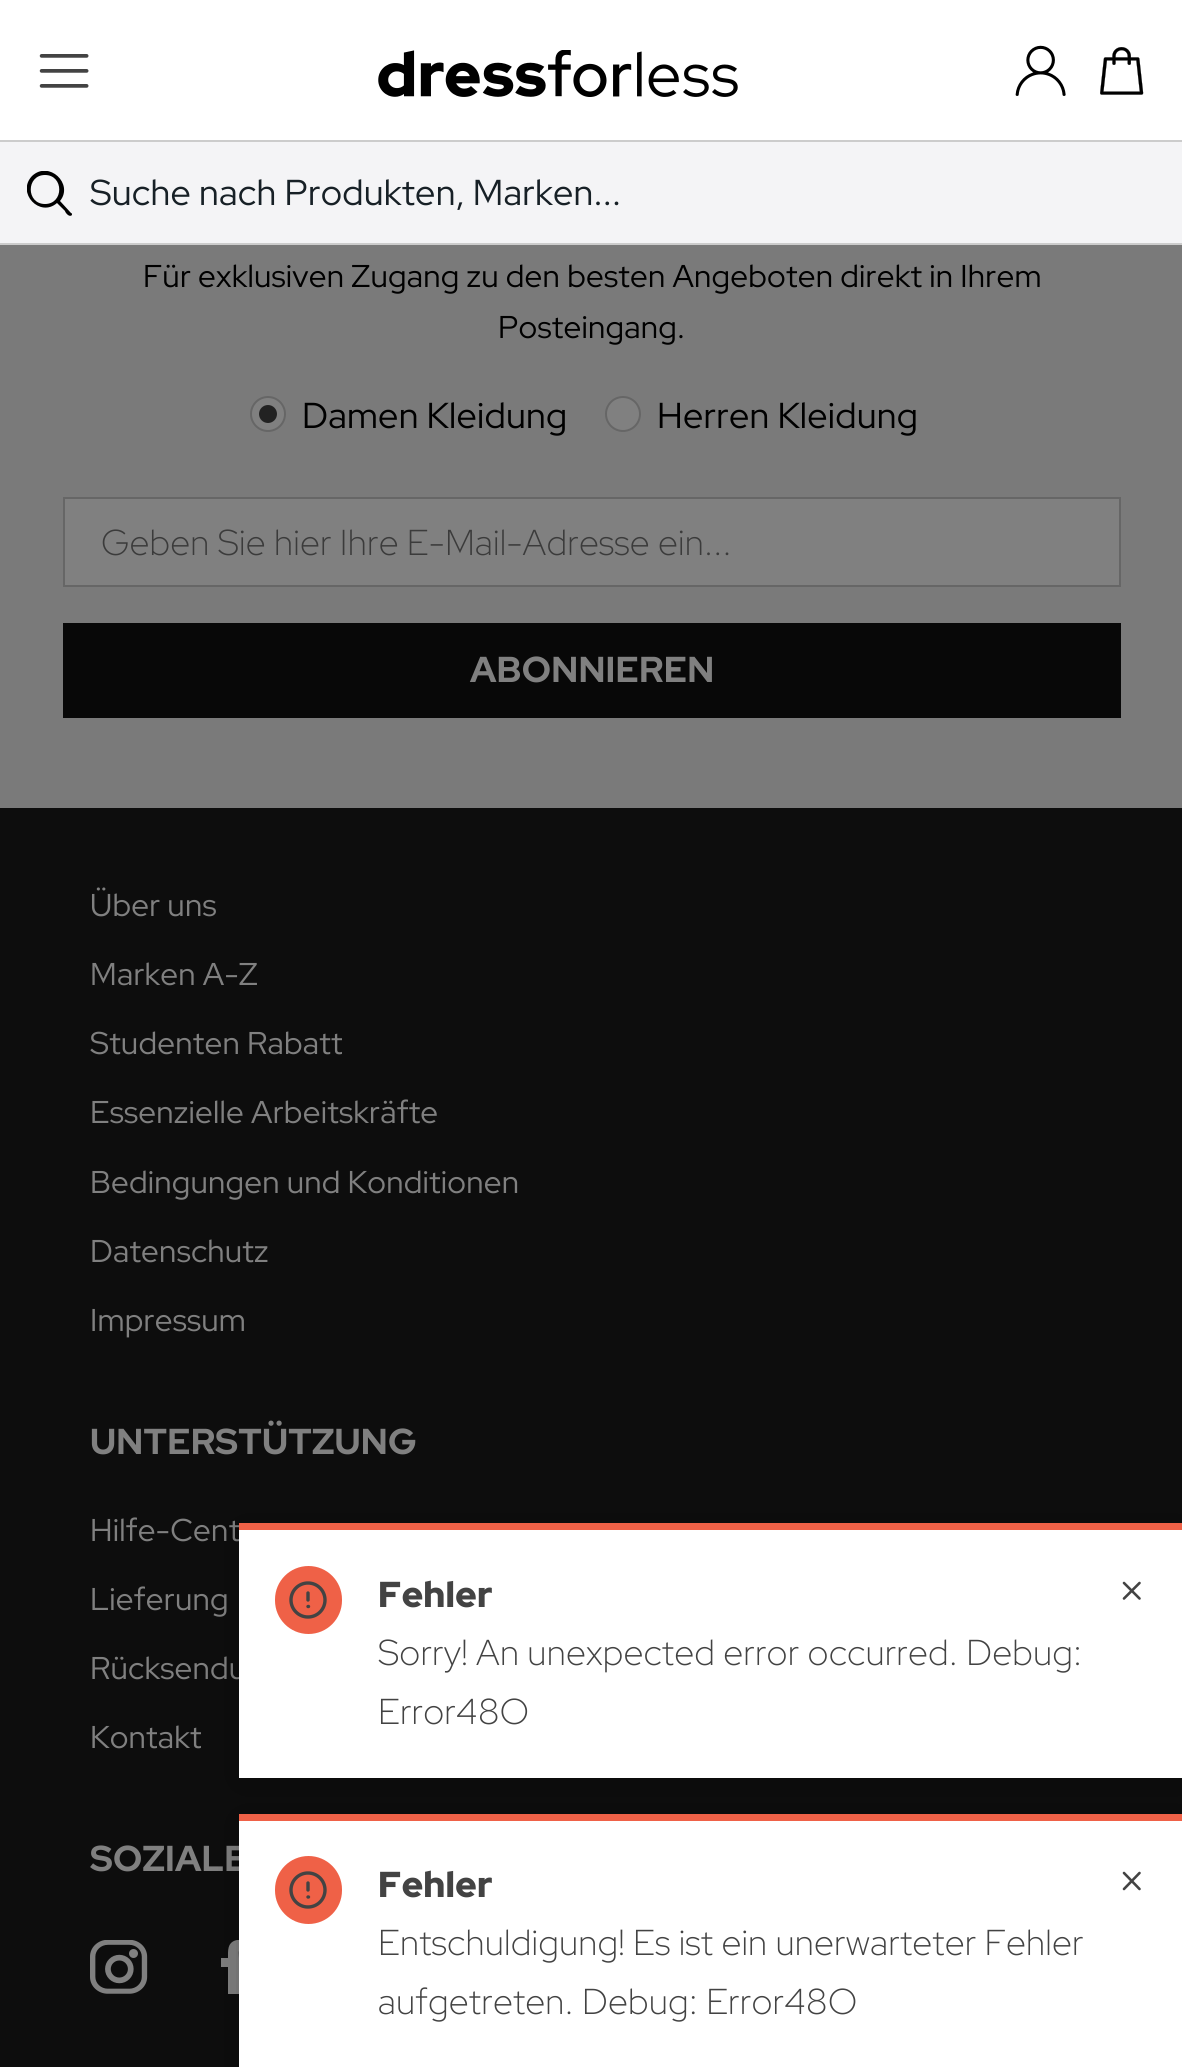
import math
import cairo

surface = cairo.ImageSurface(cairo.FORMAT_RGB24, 1182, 2067)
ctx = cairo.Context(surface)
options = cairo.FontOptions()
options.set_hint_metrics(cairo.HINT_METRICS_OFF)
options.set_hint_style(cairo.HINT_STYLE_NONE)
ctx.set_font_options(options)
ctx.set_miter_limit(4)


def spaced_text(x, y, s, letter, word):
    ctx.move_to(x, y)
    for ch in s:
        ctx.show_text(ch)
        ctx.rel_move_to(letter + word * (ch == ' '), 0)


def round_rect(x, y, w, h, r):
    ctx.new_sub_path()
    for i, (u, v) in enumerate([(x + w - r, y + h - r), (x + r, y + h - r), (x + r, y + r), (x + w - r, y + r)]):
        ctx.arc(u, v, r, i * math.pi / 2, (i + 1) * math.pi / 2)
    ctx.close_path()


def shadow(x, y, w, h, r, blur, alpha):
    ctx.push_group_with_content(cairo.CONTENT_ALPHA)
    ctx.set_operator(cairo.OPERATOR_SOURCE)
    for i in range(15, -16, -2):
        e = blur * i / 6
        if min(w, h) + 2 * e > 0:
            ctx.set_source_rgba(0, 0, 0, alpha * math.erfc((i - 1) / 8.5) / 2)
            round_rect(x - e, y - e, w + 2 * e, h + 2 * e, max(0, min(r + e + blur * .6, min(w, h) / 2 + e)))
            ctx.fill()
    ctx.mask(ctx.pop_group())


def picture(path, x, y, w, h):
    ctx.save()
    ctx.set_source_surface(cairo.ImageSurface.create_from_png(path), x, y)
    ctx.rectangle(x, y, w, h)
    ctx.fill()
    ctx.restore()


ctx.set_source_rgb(0.478, 0.478, 0.478)
ctx.paint()
ctx.set_source_rgb(1, 1, 1)
ctx.rectangle(0, 0, 1182, 140)
ctx.fill()
picture("img1.png", 39, 54, 50, 34)
picture("img2.png", 378, 50, 360, 47)
picture("img3.png", 1015, 45, 51, 51)
picture("img4.png", 1100, 47, 44, 48)
ctx.set_source_rgb(0.8, 0.8, 0.8)
ctx.rectangle(0, 140, 1182, 2)
ctx.fill()
ctx.rectangle(0, 243, 1182, 2)
ctx.fill()
ctx.set_source_rgb(0.957, 0.957, 0.961)
ctx.rectangle(0, 142, 1182, 101)
ctx.fill()
ctx.save()
ctx.rectangle(27, 171, 45, 45)
ctx.clip()
ctx.set_source_rgb(0, 0, 0)
ctx.new_path()
ctx.move_to(71, 213)
ctx.line_to(60, 201)
ctx.curve_to(74, 184, 49, 160, 32, 176)
ctx.curve_to(16, 193, 40, 218, 57, 203)
ctx.line_to(65, 211)
ctx.curve_to(65, 212, 69, 218, 72, 215)
ctx.curve_to(72, 214, 72, 213, 71, 213)
ctx.close_path()
ctx.move_to(45, 204)
ctx.curve_to(26, 204, 26, 175, 45, 175)
ctx.curve_to(64, 175, 64, 204, 45, 204)
ctx.close_path()
ctx.fill()
ctx.restore()
ctx.select_font_face("Red Hat Display")
ctx.set_font_size(36)
ctx.set_source_rgb(0.09, 0.125, 0.149)
spaced_text(90, 205, "Suche nach Produkten, Marken...", 0.23, 0)
ctx.set_font_size(31.5)
ctx.set_source_rgb(0, 0, 0)
spaced_text(143, 287, "Für exklusiven Zugang zu den besten Angeboten direkt in Ihrem", 0.23, 0)
spaced_text(498, 338, "Posteingang.", 0.23, 0)
ctx.set_source_rgb(0.502, 0.502, 0.502)
ctx.new_path()
ctx.arc(268, 414, 17, 0, 2 * math.pi)
ctx.fill_preserve()
ctx.set_source_rgb(0.4, 0.4, 0.4)
ctx.stroke()
ctx.set_source_rgb(0.133, 0.133, 0.133)
ctx.arc(268, 414, 9, 0, 2 * math.pi)
ctx.fill()
ctx.set_font_size(36)
ctx.set_source_rgb(0, 0, 0)
spaced_text(302, 428, "Damen Kleidung", 0.23, 0)
ctx.set_source_rgb(0.502, 0.502, 0.502)
ctx.new_path()
ctx.arc(623, 414, 17, 0, 2 * math.pi)
ctx.fill_preserve()
ctx.set_source_rgb(0.4, 0.4, 0.4)
ctx.stroke()
ctx.set_source_rgb(0, 0, 0)
spaced_text(657, 428, "Herren Kleidung", 0.23, 0)
ctx.set_source_rgb(0.502, 0.502, 0.502)
ctx.rectangle(64, 498, 1056, 88)
ctx.fill_preserve()
ctx.set_source_rgb(0.4, 0.4, 0.4)
ctx.stroke()
ctx.select_font_face("Red Hat Display Light")
ctx.set_source_rgb(0.231, 0.231, 0.231)
spaced_text(101, 555, "Geben Sie hier Ihre E-Mail-Adresse ein...", 0.23, 0)
ctx.set_source_rgb(0.035, 0.035, 0.035)
ctx.rectangle(63, 623, 1058, 95)
ctx.fill()
ctx.select_font_face("Red Hat Display", cairo.FONT_SLANT_NORMAL, cairo.FONT_WEIGHT_BOLD)
ctx.set_source_rgb(0.502, 0.502, 0.502)
spaced_text(470, 682, "ABONNIEREN", 0.23, 0)
ctx.set_source_rgb(0.051, 0.051, 0.051)
ctx.rectangle(0, 808, 1182, 1259)
ctx.fill()
ctx.select_font_face("Red Hat Display")
ctx.set_font_size(31.5)
ctx.set_source_rgb(0.502, 0.502, 0.502)
spaced_text(90, 916, "Über uns", 0.23, 0)
spaced_text(90, 985, "Marken A-Z", 0.23, 0)
spaced_text(90, 1054, "Studenten Rabatt", 0.23, 0)
spaced_text(90, 1123, "Essenzielle Arbeitskräfte", 0.23, 0)
spaced_text(90, 1193, "Bedingungen und Konditionen", 0.23, 0)
spaced_text(90, 1262, "Datenschutz", 0.23, 0)
spaced_text(90, 1331, "Impressum", 0.23, 0)
ctx.select_font_face("Red Hat Display", cairo.FONT_SLANT_NORMAL, cairo.FONT_WEIGHT_BOLD)
ctx.set_font_size(36)
spaced_text(90, 1454, "UNTERSTÜTZUNG", 0.23, 0)
ctx.select_font_face("Red Hat Display")
ctx.set_font_size(31.5)
spaced_text(90, 1541, "Hilfe-Cent", 0.23, 0)
spaced_text(90, 1610, "Lieferung", 0.23, 0)
spaced_text(90, 1679, "Rücksendu", 0.23, 0)
spaced_text(90, 1748, "Kontakt", 0.23, 0)
ctx.select_font_face("Red Hat Display", cairo.FONT_SLANT_NORMAL, cairo.FONT_WEIGHT_BOLD)
ctx.set_font_size(36)
spaced_text(90, 1871, "SOZIALE", 0.23, 0)
picture("img5.png", 90, 1940, 58, 54)
ctx.new_path()
ctx.move_to(239, 1958)
ctx.curve_to(239, 1951, 237, 1948, 246, 1948)
ctx.line_to(246, 1940)
ctx.line_to(237, 1940)
ctx.curve_to(227, 1942, 228, 1951, 228, 1958)
ctx.line_to(221, 1958)
ctx.line_to(221, 1967)
ctx.line_to(228, 1967)
ctx.line_to(228, 1994)
ctx.line_to(239, 1994)
ctx.line_to(239, 1967)
ctx.line_to(246, 1967)
ctx.line_to(249, 1958)
ctx.close_path()
ctx.fill()
ctx.set_source_rgb(0, 0, 0)
shadow(239, 1528, 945, 254, 0, 18, 0.2)
ctx.set_source_rgb(1, 1, 1)
ctx.rectangle(239, 1530, 943, 248)
ctx.fill()
ctx.set_source_rgb(0.937, 0.38, 0.278)
ctx.rectangle(239, 1523, 943, 7)
ctx.fill()
round_rect(275, 1566, 67, 68, 33.5)
ctx.fill()
ctx.arc(308, 1600, 17, 0, 2 * math.pi)
ctx.set_source_rgb(0.263, 0.263, 0.263)
ctx.set_line_width(3.4)
ctx.stroke()
ctx.new_path()
ctx.move_to(308, 1593)
ctx.line_to(308, 1600)
ctx.move_to(308, 1606.5)
ctx.line_to(308.5, 1606.5)
ctx.set_line_cap(cairo.LINE_CAP_ROUND)
ctx.set_line_join(cairo.LINE_JOIN_ROUND)
ctx.stroke()
ctx.select_font_face("Red Hat Display Black")
spaced_text(378, 1607, "Fehler", 0.23, 0)
ctx.new_path()
ctx.move_to(1139.5, 1583)
ctx.line_to(1124, 1598.5)
ctx.move_to(1124, 1583)
ctx.line_to(1139.5, 1598.5)
ctx.set_line_width(2.6)
ctx.stroke()
ctx.select_font_face("Red Hat Display Light")
spaced_text(378, 1665, "Sorry! An unexpected error occurred. Debug:", 0.23, 0)
spaced_text(378, 1724, "Error48O", 0.23, 0)
ctx.set_source_rgb(0, 0, 0)
shadow(239, 1818, 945, 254, 0, 18, 0.2)
ctx.set_source_rgb(1, 1, 1)
ctx.rectangle(239, 1821, 943, 246)
ctx.fill()
ctx.set_source_rgb(0.937, 0.38, 0.278)
ctx.rectangle(239, 1814, 943, 7)
ctx.fill()
round_rect(275, 1856, 67, 68, 33.5)
ctx.fill()
ctx.arc(308, 1890, 17, 0, 2 * math.pi)
ctx.set_source_rgb(0.263, 0.263, 0.263)
ctx.set_line_width(3.4)
ctx.set_line_cap(cairo.LINE_CAP_BUTT)
ctx.set_line_join(cairo.LINE_JOIN_MITER)
ctx.stroke()
ctx.new_path()
ctx.move_to(308, 1883)
ctx.line_to(308, 1890)
ctx.move_to(308, 1897)
ctx.line_to(308.5, 1897)
ctx.set_line_cap(cairo.LINE_CAP_ROUND)
ctx.set_line_join(cairo.LINE_JOIN_ROUND)
ctx.stroke()
ctx.select_font_face("Red Hat Display Black")
spaced_text(378, 1897, "Fehler", 0.23, 0)
ctx.new_path()
ctx.move_to(1139.5, 1873)
ctx.line_to(1124, 1889)
ctx.move_to(1124, 1873)
ctx.line_to(1139.5, 1889)
ctx.set_line_width(2.6)
ctx.stroke()
ctx.select_font_face("Red Hat Display Light")
spaced_text(378, 1955, "Entschuldigung! Es ist ein unerwarteter Fehler", 0.23, 0)
spaced_text(378, 2014, "aufgetreten. Debug: Error48O", 0.23, 0)
surface.write_to_png("page.png")
